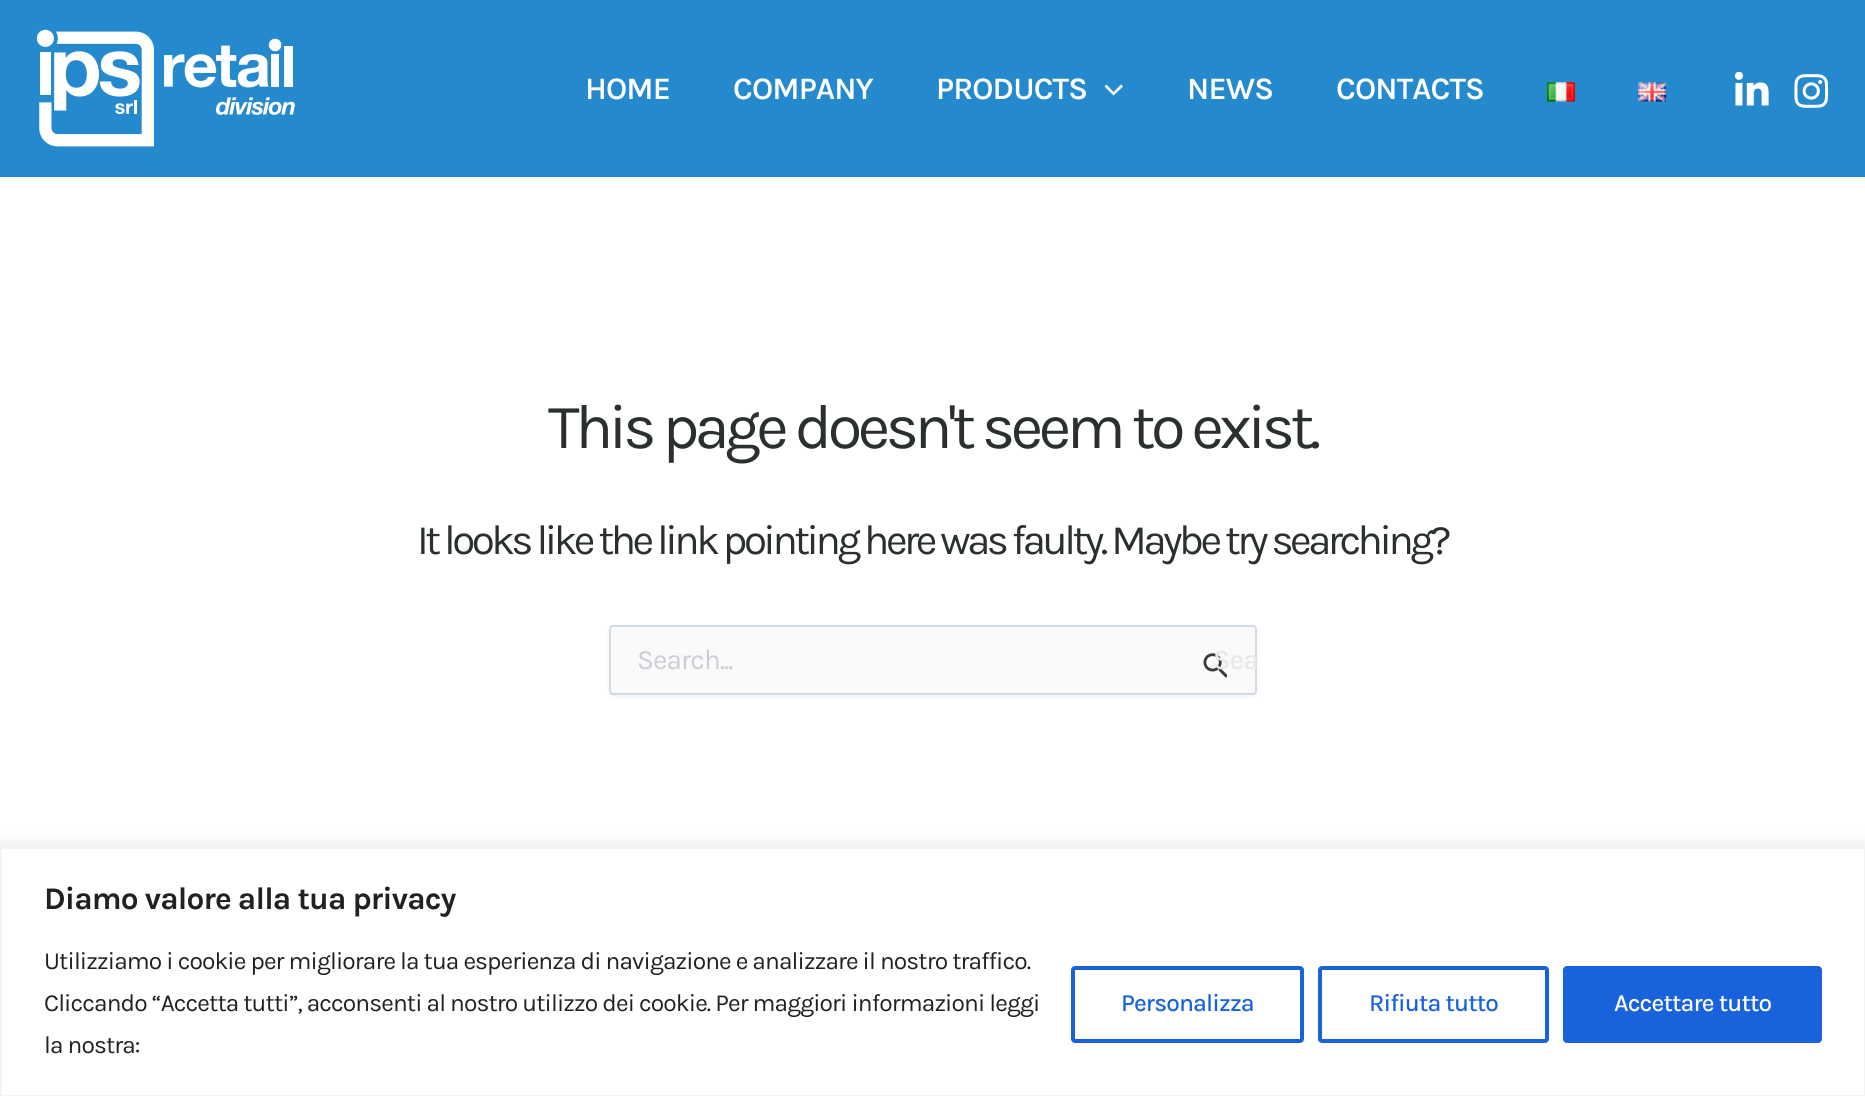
import math
import cairo

surface = cairo.ImageSurface(cairo.FORMAT_RGB24, 1865, 1096)
ctx = cairo.Context(surface)
options = cairo.FontOptions()
options.set_hint_metrics(cairo.HINT_METRICS_OFF)
options.set_hint_style(cairo.HINT_STYLE_NONE)
ctx.set_font_options(options)
ctx.set_miter_limit(4)


def spaced_text(x, y, s, letter, word):
    ctx.move_to(x, y)
    for ch in s:
        ctx.show_text(ch)
        ctx.rel_move_to(letter + word * (ch == ' '), 0)


def round_rect(x, y, w, h, r):
    ctx.new_sub_path()
    for i, (u, v) in enumerate([(x + w - r, y + h - r), (x + r, y + h - r), (x + r, y + r), (x + w - r, y + r)]):
        ctx.arc(u, v, r, i * math.pi / 2, (i + 1) * math.pi / 2)
    ctx.close_path()


def shadow(x, y, w, h, r, blur, alpha):
    ctx.push_group_with_content(cairo.CONTENT_ALPHA)
    ctx.set_operator(cairo.OPERATOR_SOURCE)
    for i in range(15, -16, -2):
        e = blur * i / 6
        if min(w, h) + 2 * e > 0:
            ctx.set_source_rgba(0, 0, 0, alpha * math.erfc((i - 1) / 8.5) / 2)
            round_rect(x - e, y - e, w + 2 * e, h + 2 * e, max(0, min(r + e + blur * .6, min(w, h) / 2 + e)))
            ctx.fill()
    ctx.mask(ctx.pop_group())


def picture(path, x, y, w, h):
    ctx.save()
    ctx.set_source_surface(cairo.ImageSurface.create_from_png(path), x, y)
    ctx.rectangle(x, y, w, h)
    ctx.fill()
    ctx.restore()


ctx.set_source_rgb(1, 1, 1)
ctx.paint()
ctx.set_source_rgb(0.145, 0.541, 0.804)
ctx.rectangle(0, 0, 1865, 177)
ctx.fill()
picture("img1.png", 36, 29, 259, 118)
ctx.select_font_face("Karla SemiBold")
ctx.set_font_size(31.5)
ctx.set_source_rgb(1, 1, 1)
spaced_text(585, 99, "HOME", -0.88, 0)
spaced_text(733, 99, "COMPANY", -0.88, 0)
spaced_text(936, 99, "PRODUCTS", -0.88, 0)
ctx.new_path()
ctx.move_to(1104.5, 86.5)
ctx.line_to(1113.5, 95.5)
ctx.line_to(1123, 86.5)
ctx.line_to(1121, 84.5)
ctx.line_to(1113.5, 92)
ctx.line_to(1106.5, 84.5)
ctx.close_path()
ctx.fill()
spaced_text(1187, 99, "NEWS", -0.88, 0)
spaced_text(1336, 99, "CONTACTS", -0.88, 0)
picture("img2.png", 1547, 82, 28, 20)
picture("img3.png", 1638, 82, 28, 20)
picture("img4.png", 1734, 72, 35, 34)
picture("img5.png", 1794, 74, 35, 34)
ctx.select_font_face("Karla")
ctx.set_font_size(63)
ctx.set_source_rgb(0.165, 0.188, 0.176)
spaced_text(548, 448, "This page doesn't seem to exist.", -4.4, 0)
ctx.set_font_size(42)
spaced_text(417, 554, "It looks like the link pointing here was faulty. Maybe try searching?", -3.5, 0)
ctx.set_source_rgb(0, 0, 0)
shadow(609, 627, 648, 70, 4, 2, 0.05)
ctx.set_source_rgb(0.98, 0.98, 0.98)
round_rect(610, 626, 646, 68, 3)
ctx.fill_preserve()
ctx.set_source_rgb(0.82, 0.855, 0.898)
ctx.stroke()
ctx.set_font_size(28)
ctx.set_source_rgb(0.796, 0.812, 0.835)
spaced_text(637, 669, "Search...", -0.88, 0)
picture("img6.png", 1203, 653, 24, 25)
ctx.select_font_face("Karla Medium")
ctx.set_source_rgb(0.906, 0.91, 0.91)
spaced_text(1213, 669, "Sea", -0.88, 0)
ctx.set_source_rgb(0.675, 0.671, 0.671)
shadow(0, 845, 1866, 251, 0, 9, 0.3)
ctx.set_source_rgb(1, 1, 1)
ctx.rectangle(1, 848, 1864, 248)
ctx.fill_preserve()
ctx.set_source_rgb(0.957, 0.957, 0.957)
ctx.stroke()
ctx.select_font_face("Karla", cairo.FONT_SLANT_NORMAL, cairo.FONT_WEIGHT_BOLD)
ctx.set_font_size(31.5)
ctx.set_source_rgb(0.129, 0.129, 0.129)
spaced_text(44, 909, "Diamo valore alla tua privacy", -0.88, 0)
ctx.select_font_face("Karla")
ctx.set_font_size(24.5)
spaced_text(44, 969, "Utilizziamo i cookie per migliorare la tua esperienza di navigazione e analizzare il nostro traffico.", -0.88, 0)
spaced_text(44, 1011, "Cliccando “Accetta tutti”, acconsenti al nostro utilizzo dei cookie. Per maggiori informazioni leggi", -0.88, 0)
spaced_text(44, 1053, "la nostra:", -0.88, 0)
round_rect(1073, 968, 229, 73, 2)
ctx.set_source_rgb(0.094, 0.388, 0.863)
ctx.set_line_width(4)
ctx.stroke()
ctx.select_font_face("Karla Medium")
spaced_text(1121, 1011, "Personalizza", -0.88, 0)
round_rect(1320, 968, 227, 73, 2)
ctx.stroke()
spaced_text(1369, 1011, "Rifiuta tutto", -0.88, 0)
round_rect(1565, 968, 255, 73, 2)
ctx.fill_preserve()
ctx.stroke()
ctx.set_source_rgb(1, 1, 1)
spaced_text(1614, 1011, "Accettare tutto", -0.88, 0)
surface.write_to_png("page.png")
